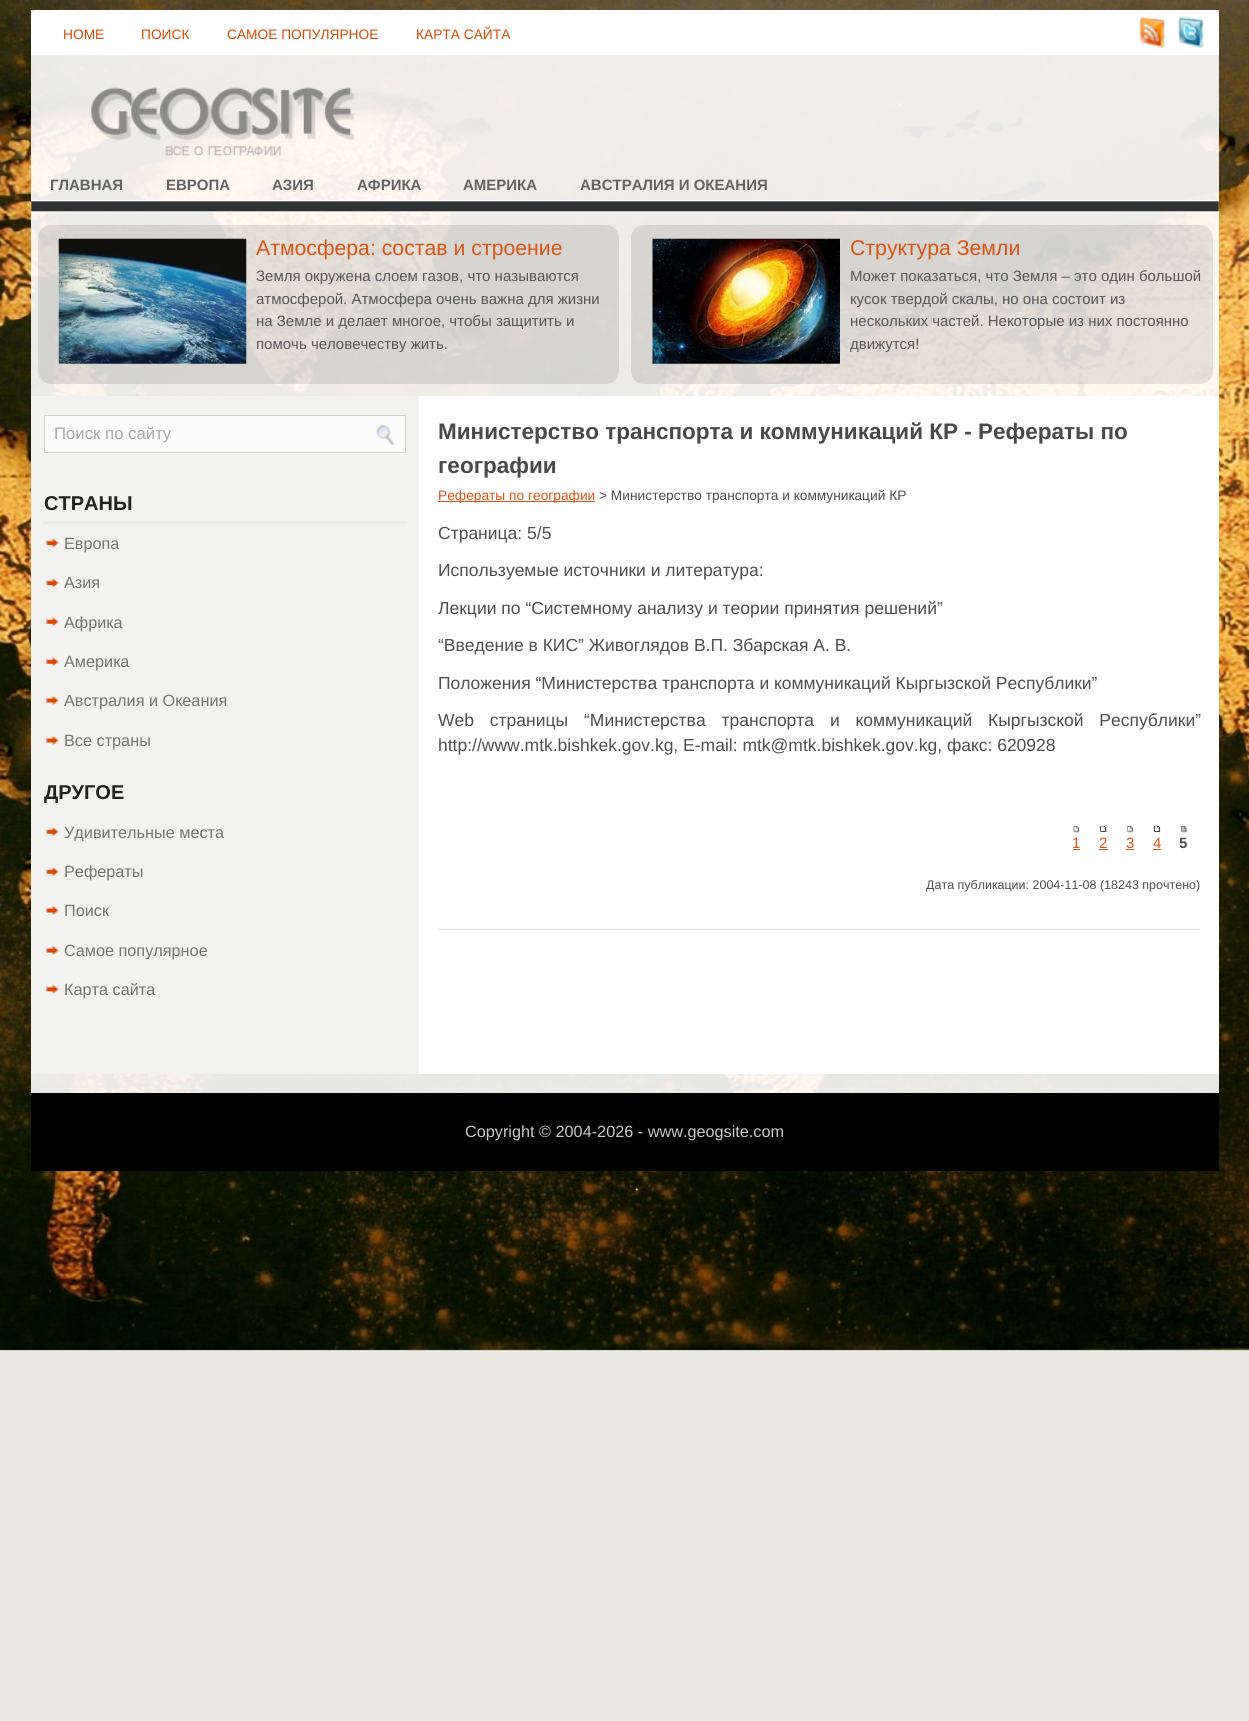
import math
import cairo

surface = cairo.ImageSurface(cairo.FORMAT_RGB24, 1249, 1721)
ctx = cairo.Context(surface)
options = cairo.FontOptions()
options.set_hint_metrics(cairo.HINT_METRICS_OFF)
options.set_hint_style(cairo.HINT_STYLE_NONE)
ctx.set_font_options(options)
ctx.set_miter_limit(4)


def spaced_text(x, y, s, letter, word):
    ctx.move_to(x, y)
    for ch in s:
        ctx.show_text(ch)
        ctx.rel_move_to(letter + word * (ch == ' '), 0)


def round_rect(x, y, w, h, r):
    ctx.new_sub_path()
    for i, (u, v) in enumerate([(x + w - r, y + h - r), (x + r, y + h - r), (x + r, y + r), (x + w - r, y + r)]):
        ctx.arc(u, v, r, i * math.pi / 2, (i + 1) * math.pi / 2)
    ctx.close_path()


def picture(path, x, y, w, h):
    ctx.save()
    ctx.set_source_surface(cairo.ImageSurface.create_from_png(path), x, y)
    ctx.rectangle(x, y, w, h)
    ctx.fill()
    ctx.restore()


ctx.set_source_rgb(0.914, 0.914, 0.886)
ctx.paint()
picture("img1.png", 0, 0, 1249, 1351)
ctx.set_source_rgba(1, 1, 1, 0.9)
ctx.rectangle(31, 10, 1188, 1083)
ctx.fill()
ctx.set_source_rgb(1, 1, 1)
ctx.new_path()
ctx.move_to(37, 10)
ctx.line_to(1213, 10)
ctx.curve_to(1216.5, 10, 1219, 12.5, 1219, 16)
ctx.line_to(1219, 55)
ctx.line_to(31, 55)
ctx.line_to(31, 16)
ctx.curve_to(31, 12.5, 33.5, 10, 37, 10)
ctx.close_path()
ctx.fill()
ctx.select_font_face("Liberation Sans")
ctx.set_font_size(13.75)
ctx.set_source_rgb(0.839, 0.278, 0)
ctx.move_to(63, 39)
ctx.show_text("HOME")
ctx.move_to(141, 39)
ctx.show_text("ПОИСК")
ctx.move_to(227, 39)
ctx.show_text("САМОЕ ПОПУЛЯРНОЕ")
ctx.move_to(416, 39)
ctx.show_text("КАРТА САЙТА")
picture("img2.png", 1139, 17, 26, 31)
picture("img3.png", 1178, 17, 26, 31)
picture("img4.png", 91, 87, 264, 70)
picture("img5.png", 31, 200, 1188, 13)
ctx.select_font_face("Liberation Sans", cairo.FONT_SLANT_NORMAL, cairo.FONT_WEIGHT_BOLD)
ctx.set_font_size(15)
ctx.set_source_rgb(0.388, 0.384, 0.384)
ctx.move_to(50, 190)
ctx.show_text("ГЛАВНАЯ")
ctx.move_to(166, 190)
ctx.show_text("ЕВРОПА")
ctx.move_to(272, 190)
ctx.show_text("АЗИЯ")
ctx.move_to(357, 190)
ctx.show_text("АФРИКА")
ctx.move_to(463, 190)
ctx.show_text("АМЕРИКА")
ctx.move_to(580, 190)
ctx.show_text("АВСТРАЛИЯ И ОКЕАНИЯ")
ctx.set_source_rgba(0, 0, 0, 0.1)
round_rect(38, 225, 581, 159, 13)
ctx.fill()
picture("img6.png", 58, 238, 189, 126)
ctx.select_font_face("Liberation Sans")
ctx.set_font_size(21.25)
ctx.set_source_rgb(0.851, 0.325, 0.067)
ctx.move_to(256, 255)
ctx.show_text("Атмосфера: состав и строение")
ctx.set_font_size(15)
ctx.set_source_rgb(0.333, 0.333, 0.333)
ctx.move_to(256, 281)
ctx.show_text("Земля окружена слоем газов, что называются")
ctx.move_to(256, 304)
ctx.show_text("атмосферой. Атмосфера очень важна для жизни")
ctx.move_to(256, 326)
ctx.show_text("на Земле и делает многое, чтобы защитить и")
ctx.move_to(256, 349)
ctx.show_text("помочь человечеству жить.")
ctx.set_source_rgba(0, 0, 0, 0.1)
round_rect(631, 225, 582, 159, 13)
ctx.fill()
picture("img7.png", 652, 238, 188, 126)
ctx.set_font_size(21.25)
ctx.set_source_rgb(0.851, 0.325, 0.067)
ctx.move_to(850, 255)
ctx.show_text("Структура Земли")
ctx.set_font_size(15)
ctx.set_source_rgb(0.333, 0.333, 0.333)
ctx.move_to(850, 281)
ctx.show_text("Может показаться, что Земля – это один большой")
ctx.move_to(850, 304)
ctx.show_text("кусок твердой скалы, но она состоит из")
ctx.move_to(850, 326)
ctx.show_text("нескольких частей. Некоторые из них постоянно")
ctx.move_to(850, 349)
ctx.show_text("движутся!")
ctx.set_source_rgb(1, 1, 1)
ctx.rectangle(419, 396, 800, 678)
ctx.fill()
ctx.set_source_rgb(0.949, 0.949, 0.941)
ctx.rectangle(31, 396, 388, 678)
ctx.fill()
ctx.set_source_rgb(0.984, 0.984, 0.984)
ctx.rectangle(44.5, 415.5, 361, 37)
ctx.fill_preserve()
ctx.set_source_rgb(0.812, 0.816, 0.816)
ctx.set_line_width(1)
ctx.stroke()
ctx.set_font_size(16.75)
ctx.set_source_rgb(0.659, 0.659, 0.659)
ctx.move_to(54, 439)
ctx.show_text("Поиск по сайту")
picture("img8.png", 376, 425, 19, 21)
ctx.set_source_rgb(0.918, 0.918, 0.91)
ctx.rectangle(43, 521, 364, 3)
ctx.fill()
ctx.select_font_face("Liberation Sans", cairo.FONT_SLANT_NORMAL, cairo.FONT_WEIGHT_BOLD)
ctx.set_font_size(20)
ctx.set_source_rgb(0.133, 0.129, 0.129)
ctx.move_to(44, 510)
ctx.show_text("СТРАНЫ")
picture("img9.png", 46, 538, 13, 10)
ctx.select_font_face("Liberation Sans")
ctx.set_font_size(16.25)
ctx.set_source_rgb(0.455, 0.455, 0.455)
ctx.move_to(64, 549)
ctx.show_text("Европа")
picture("img9.png", 46, 578, 13, 10)
ctx.move_to(64, 588)
ctx.show_text("Азия")
picture("img10.png", 46, 617, 13, 10)
ctx.move_to(64, 628)
ctx.show_text("Африка")
picture("img10.png", 46, 657, 13, 10)
ctx.move_to(64, 667)
ctx.show_text("Америка")
picture("img11.png", 46, 696, 13, 9)
ctx.move_to(64, 706)
ctx.show_text("Австралия и Океания")
picture("img11.png", 46, 736, 13, 9)
ctx.move_to(64, 746)
ctx.show_text("Все страны")
ctx.select_font_face("Liberation Sans", cairo.FONT_SLANT_NORMAL, cairo.FONT_WEIGHT_BOLD)
ctx.set_font_size(20)
ctx.set_source_rgb(0.133, 0.129, 0.129)
ctx.move_to(44, 799)
ctx.show_text("ДРУГОЕ")
picture("img10.png", 46, 827, 13, 10)
ctx.select_font_face("Liberation Sans")
ctx.set_font_size(16.25)
ctx.set_source_rgb(0.455, 0.455, 0.455)
ctx.move_to(64, 838)
ctx.show_text("Удивительные места")
picture("img10.png", 46, 867, 13, 10)
ctx.move_to(64, 877)
ctx.show_text("Рефераты")
picture("img11.png", 46, 906, 13, 9)
ctx.move_to(64, 916)
ctx.show_text("Поиск")
picture("img11.png", 46, 946, 13, 9)
ctx.move_to(64, 956)
ctx.show_text("Самое популярное")
picture("img12.png", 46, 985, 13, 9)
ctx.move_to(64, 995)
ctx.show_text("Карта сайта")
ctx.set_source_rgb(0.867, 0.867, 0.867)
ctx.rectangle(438, 929, 762, 1)
ctx.fill()
ctx.select_font_face("Liberation Sans", cairo.FONT_SLANT_NORMAL, cairo.FONT_WEIGHT_BOLD)
ctx.set_font_size(22.5)
ctx.set_source_rgb(0.29, 0.282, 0.282)
ctx.move_to(438, 439)
ctx.show_text("Министерство транспорта и коммуникаций КР - Рефераты по")
ctx.move_to(438, 473)
ctx.show_text("географии")
ctx.set_source_rgb(0.851, 0.325, 0.067)
ctx.rectangle(438, 501, 157, 1)
ctx.fill()
ctx.select_font_face("Liberation Sans")
ctx.set_font_size(13.75)
ctx.move_to(438, 500)
ctx.show_text("Рефераты по географии")
ctx.set_source_rgb(0.314, 0.302, 0.302)
ctx.move_to(599, 500)
ctx.show_text("> Министерство транспорта и коммуникаций КР")
ctx.set_font_size(17.5)
ctx.move_to(438, 539)
ctx.show_text("Страница: 5/5")
ctx.move_to(438, 576)
ctx.show_text("Используемые источники и литература:")
ctx.move_to(438, 614)
ctx.show_text("Лекции по “Системному анализу и теории принятия решений”")
ctx.move_to(438, 651)
ctx.show_text("“Введение в КИС” Живоглядов В.П. Збарская А. В.")
ctx.move_to(438, 689)
ctx.show_text("Положения “Министерства транспорта и коммуникаций Кыргызской Республики”")
spaced_text(438, 726, "Web страницы “Министерства транспорта и коммуникаций Кыргызской Республики”", 0, 11)
ctx.move_to(438, 751)
ctx.show_text("http://www.mtk.bishkek.gov.kg, E-mail: mtk@mtk.bishkek.gov.kg, факс: 620928")
picture("img13.png", 1073, 825, 7, 8)
picture("img14.png", 1100, 825, 7, 8)
picture("img15.png", 1127, 825, 7, 8)
picture("img16.png", 1153, 825, 8, 8)
picture("img17.png", 1181, 825, 6, 8)
ctx.set_font_size(15)
ctx.set_source_rgb(0.851, 0.325, 0.067)
ctx.move_to(1072, 848)
ctx.show_text("1")
ctx.rectangle(1073, 849, 7, 1)
ctx.fill()
ctx.move_to(1099, 848)
ctx.show_text("2")
ctx.rectangle(1099, 849, 9, 1)
ctx.fill()
ctx.move_to(1126, 848)
ctx.show_text("3")
ctx.rectangle(1126, 849, 8, 1)
ctx.fill()
ctx.move_to(1153, 848)
ctx.show_text("4")
ctx.rectangle(1153, 849, 8, 1)
ctx.fill()
ctx.select_font_face("Liberation Sans", cairo.FONT_SLANT_NORMAL, cairo.FONT_WEIGHT_BOLD)
ctx.set_source_rgb(0.314, 0.302, 0.302)
ctx.move_to(1179, 848)
ctx.show_text("5")
ctx.select_font_face("Liberation Sans")
ctx.set_font_size(12.5)
ctx.move_to(926, 889)
ctx.show_text("Дата публикации: 2004-11-08 (18243 прочтено)")
ctx.set_source_rgb(0, 0, 0)
ctx.rectangle(31, 1093, 1188, 78)
ctx.fill()
ctx.set_font_size(16.25)
ctx.set_source_rgb(0.788, 0.788, 0.788)
ctx.move_to(465, 1137)
ctx.show_text("Copyright © 2004-2026 - www.geogsite.com")
surface.write_to_png("page.png")
